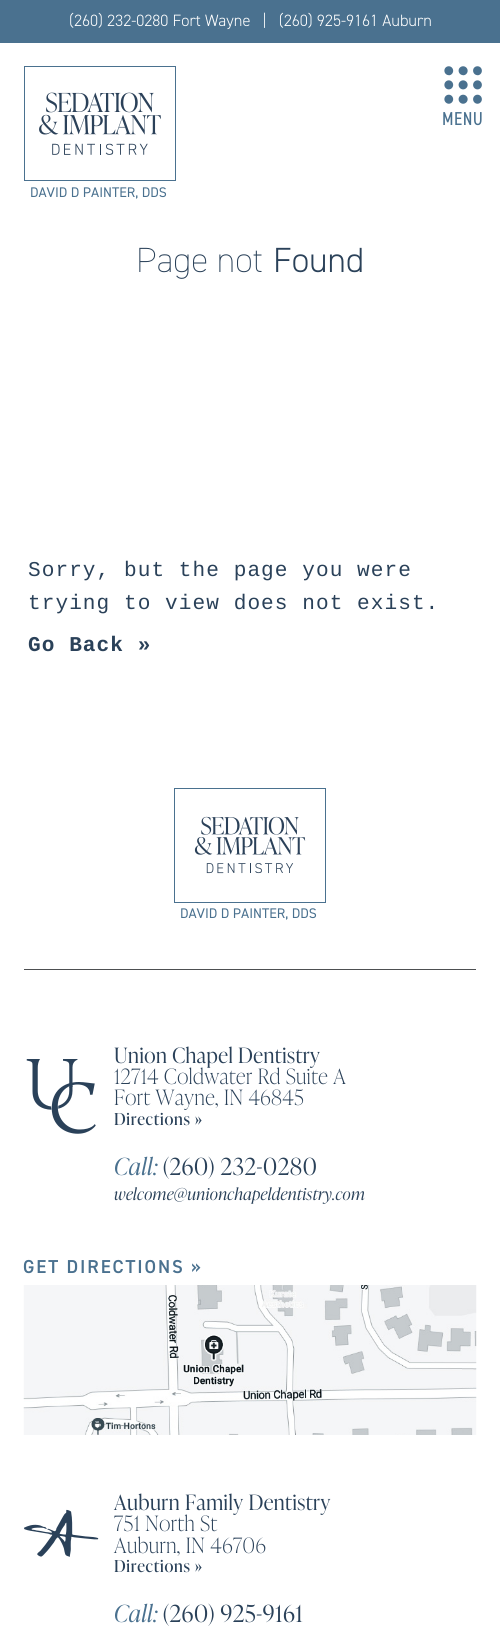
import math
import cairo

surface = cairo.ImageSurface(cairo.FORMAT_RGB24, 500, 1635)
ctx = cairo.Context(surface)
options = cairo.FontOptions()
options.set_hint_metrics(cairo.HINT_METRICS_OFF)
options.set_hint_style(cairo.HINT_STYLE_NONE)
ctx.set_font_options(options)
ctx.set_miter_limit(4)


def spaced_text(x, y, s, letter, word):
    ctx.move_to(x, y)
    for ch in s:
        ctx.show_text(ch)
        ctx.rel_move_to(letter + word * (ch == ' '), 0)


def picture(path, x, y, w, h):
    ctx.save()
    ctx.set_source_surface(cairo.ImageSurface.create_from_png(path), x, y)
    ctx.rectangle(x, y, w, h)
    ctx.fill()
    ctx.restore()


ctx.set_source_rgb(1, 1, 1)
ctx.paint()
ctx.set_source_rgb(0.29, 0.443, 0.561)
ctx.rectangle(0, 0, 500, 43)
ctx.fill()
ctx.select_font_face("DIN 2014 Light")
ctx.set_font_size(16.4)
ctx.set_source_rgb(1, 1, 1)
ctx.move_to(69, 26)
ctx.show_text("(260) 232-0280 Fort Wayne   |   (260) 925-9161 Auburn")
picture("img1.png", 444, 66, 38, 38)
ctx.select_font_face("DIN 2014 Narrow")
ctx.set_font_size(18.75)
ctx.set_source_rgb(0.29, 0.443, 0.561)
spaced_text(442, 125, "MENU", 0.5, 0)
ctx.rectangle(24.5, 66.5, 151, 114)
ctx.set_line_width(1)
ctx.stroke()
picture("img2.png", 39, 92, 122, 63)
ctx.select_font_face("DIN 2014")
ctx.set_font_size(14)
ctx.move_to(30, 197)
ctx.show_text("DAVID D PAINTER, DDS")
ctx.select_font_face("DIN 2014 ExtraLight")
ctx.set_font_size(35)
ctx.set_source_rgb(0.165, 0.255, 0.349)
ctx.move_to(136, 272)
ctx.show_text("Page not")
ctx.select_font_face("DIN 2014 Light")
ctx.move_to(273, 272)
ctx.show_text("Found")
ctx.select_font_face("Liberation Mono")
ctx.set_font_size(21.1)
spaced_text(28, 576, "Sorry, but the page you were", 1.05, 0)
spaced_text(28, 609, "trying to view does not exist.", 1.05, 0)
ctx.select_font_face("Liberation Mono", cairo.FONT_SLANT_NORMAL, cairo.FONT_WEIGHT_BOLD)
spaced_text(28, 651, "Go Back »", 1.05, 0)
ctx.rectangle(174.5, 788.5, 151, 114)
ctx.set_source_rgb(0.29, 0.443, 0.561)
ctx.stroke()
picture("img3.png", 194, 816, 112, 58)
ctx.select_font_face("DIN 2014")
ctx.set_font_size(14)
ctx.move_to(180, 918)
ctx.show_text("DAVID D PAINTER, DDS")
ctx.set_source_rgb(0.302, 0.31, 0.318)
ctx.rectangle(24, 969, 452, 1)
ctx.fill()
picture("img4.png", 26, 1059, 70, 75)
ctx.select_font_face("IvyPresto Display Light")
ctx.set_font_size(21.1)
ctx.set_source_rgb(0.165, 0.255, 0.349)
spaced_text(114, 1063, "Union Chapel Dentistry", 0.5, 0)
ctx.select_font_face("IvyPresto Display Thin")
spaced_text(114, 1084, "12714 Coldwater Rd Suite A", 0.5, 0)
spaced_text(114, 1105, "Fort Wayne, IN 46845", 0.5, 0)
ctx.select_font_face("IvyPresto Display")
ctx.set_font_size(16.4)
spaced_text(114, 1125, "Directions »", 0.75, 0)
ctx.select_font_face("IvyPresto Display Light", cairo.FONT_SLANT_ITALIC)
ctx.set_font_size(23.5)
ctx.set_source_rgb(0.29, 0.443, 0.561)
spaced_text(114, 1175, "Call:", 0.6, 0)
ctx.select_font_face("IvyPresto Display Light")
ctx.set_source_rgb(0.165, 0.255, 0.349)
spaced_text(163, 1175, "(260) 232-0280", 0.6, 0)
ctx.select_font_face("IvyPresto Display Light", cairo.FONT_SLANT_ITALIC)
ctx.set_font_size(16.4)
spaced_text(114, 1200, "welcome@unionchapeldentistry.com", 0.4, 0)
ctx.select_font_face("DIN 2014 SemiBold")
ctx.set_font_size(18.75)
ctx.set_source_rgb(0.29, 0.443, 0.561)
spaced_text(23, 1273, "GET DIRECTIONS »", 1.9, 0)
picture("img5.png", 23, 1285, 454, 150)
picture("img6.png", 24, 1509, 75, 48)
ctx.select_font_face("IvyPresto Display Light")
ctx.set_font_size(21.1)
ctx.set_source_rgb(0.165, 0.255, 0.349)
spaced_text(114, 1510, "Auburn Family Dentistry", 0.5, 0)
ctx.select_font_face("IvyPresto Display Thin")
spaced_text(114, 1531, "751 North St", 0.5, 0)
spaced_text(114, 1553, "Auburn, IN 46706", 0.5, 0)
ctx.select_font_face("IvyPresto Display")
ctx.set_font_size(16.4)
spaced_text(114, 1572, "Directions »", 0.75, 0)
ctx.select_font_face("IvyPresto Display Light", cairo.FONT_SLANT_ITALIC)
ctx.set_font_size(23.5)
ctx.set_source_rgb(0.29, 0.443, 0.561)
spaced_text(114, 1622, "Call:", 0.6, 0)
ctx.select_font_face("IvyPresto Display Light")
ctx.set_source_rgb(0.165, 0.255, 0.349)
spaced_text(163, 1622, "(260) 925-9161", 0.6, 0)
surface.write_to_png("page.png")
